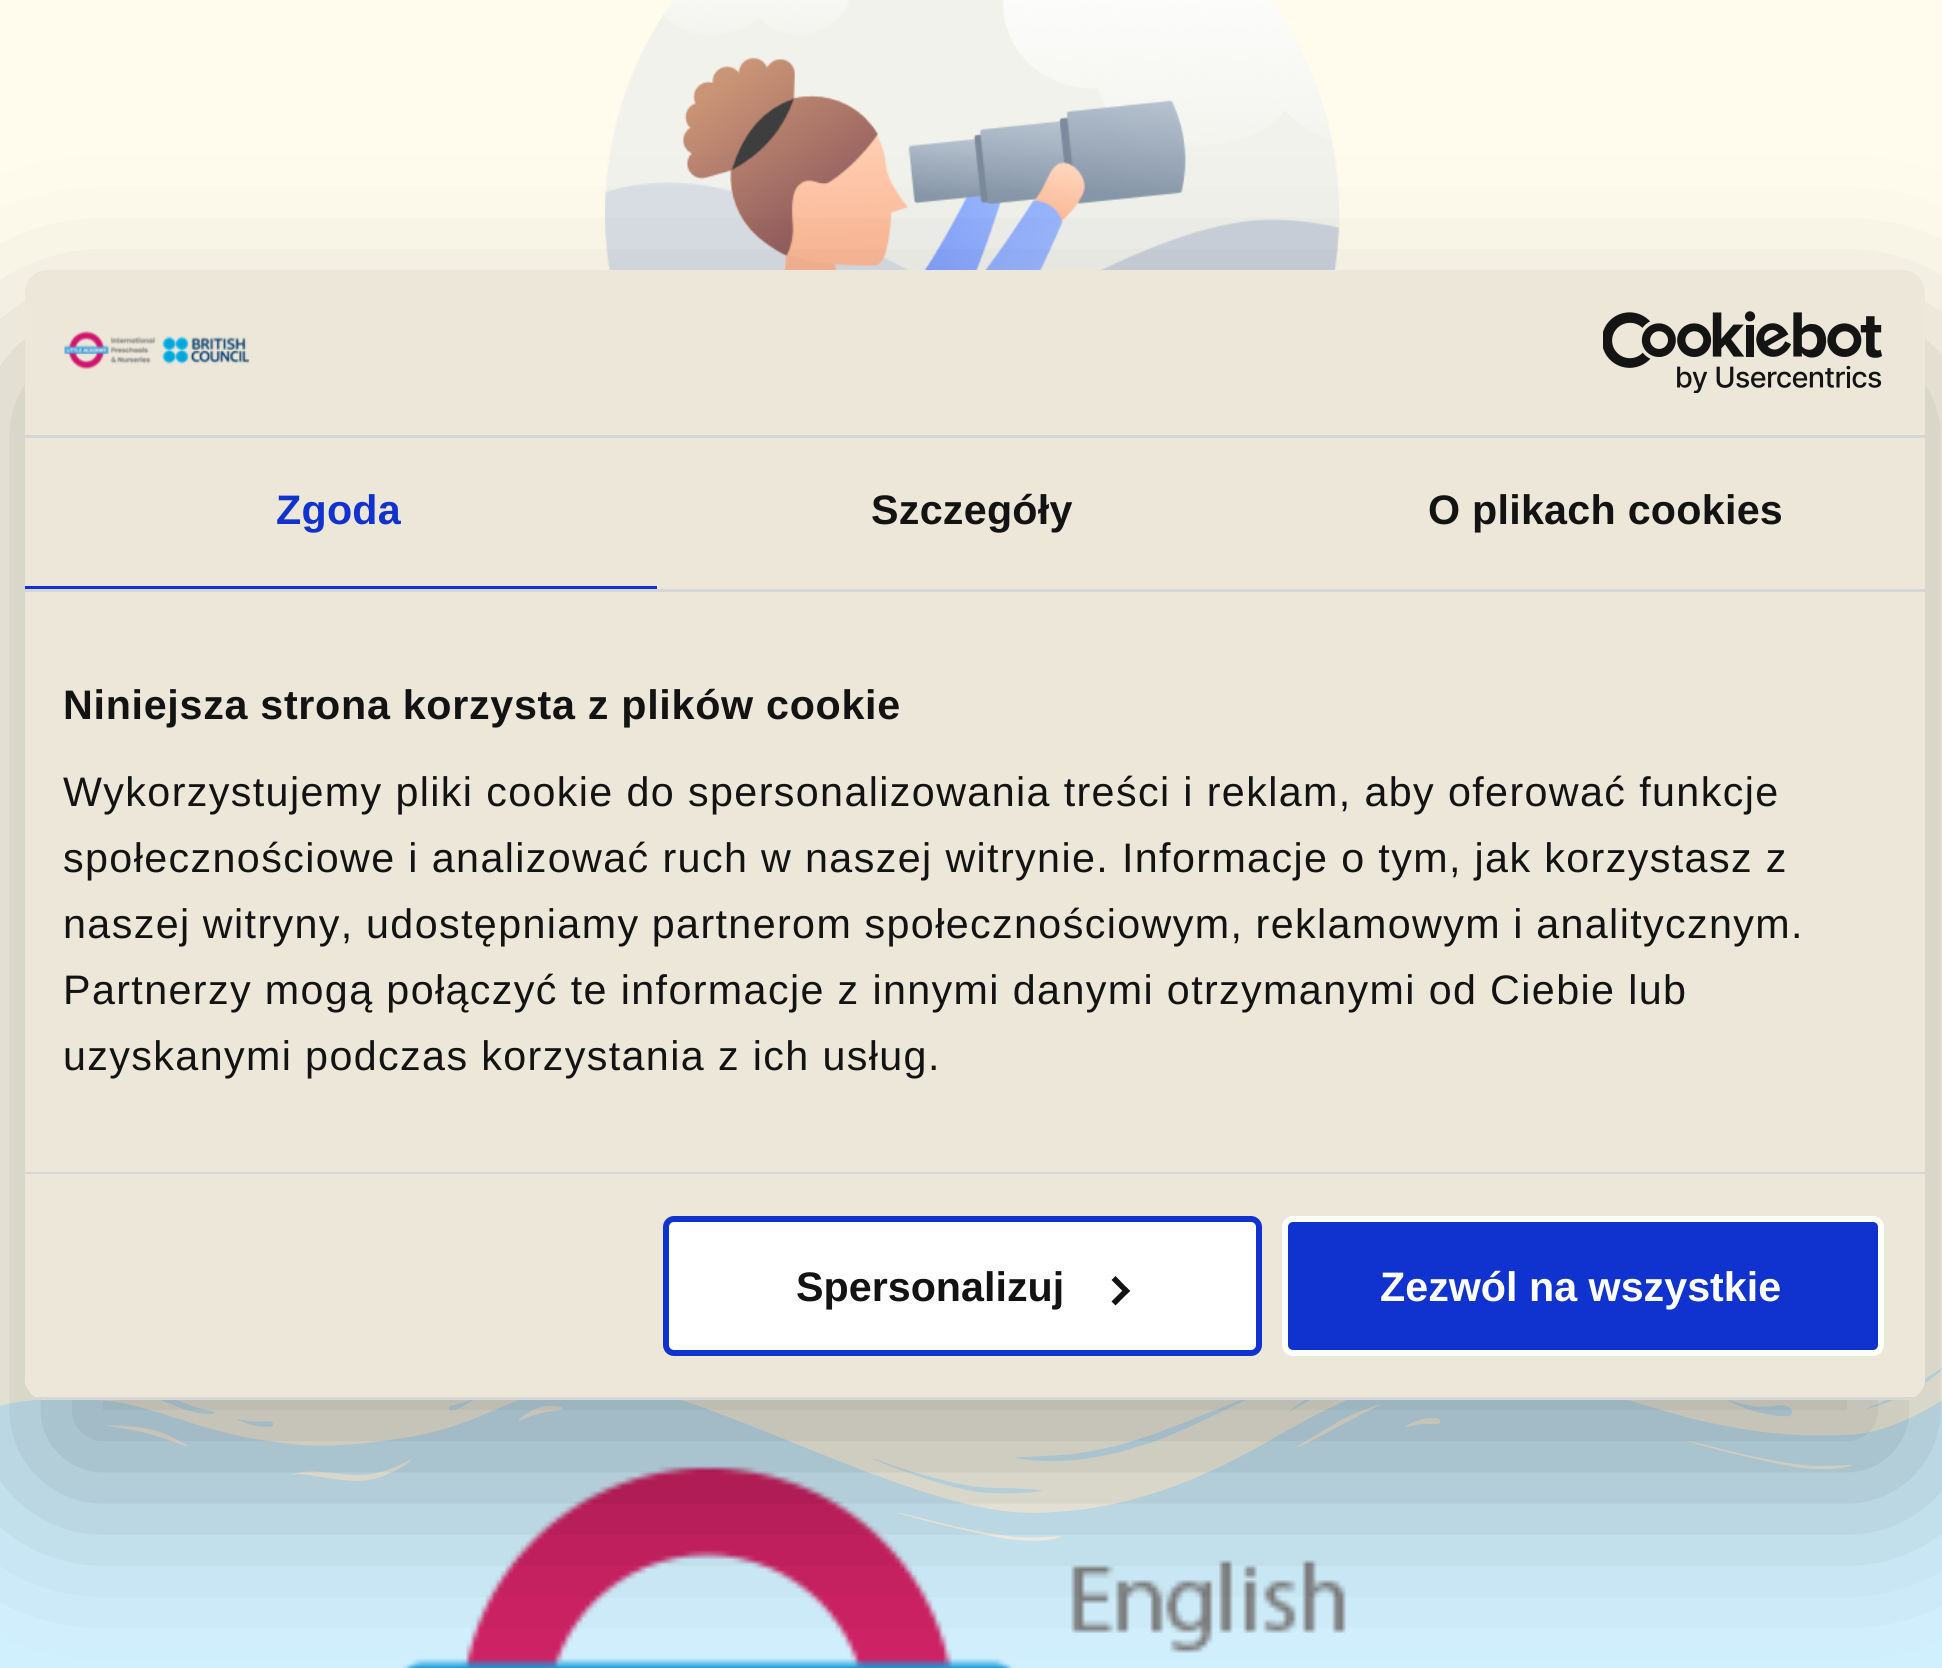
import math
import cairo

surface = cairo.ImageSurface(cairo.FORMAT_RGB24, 1942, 1668)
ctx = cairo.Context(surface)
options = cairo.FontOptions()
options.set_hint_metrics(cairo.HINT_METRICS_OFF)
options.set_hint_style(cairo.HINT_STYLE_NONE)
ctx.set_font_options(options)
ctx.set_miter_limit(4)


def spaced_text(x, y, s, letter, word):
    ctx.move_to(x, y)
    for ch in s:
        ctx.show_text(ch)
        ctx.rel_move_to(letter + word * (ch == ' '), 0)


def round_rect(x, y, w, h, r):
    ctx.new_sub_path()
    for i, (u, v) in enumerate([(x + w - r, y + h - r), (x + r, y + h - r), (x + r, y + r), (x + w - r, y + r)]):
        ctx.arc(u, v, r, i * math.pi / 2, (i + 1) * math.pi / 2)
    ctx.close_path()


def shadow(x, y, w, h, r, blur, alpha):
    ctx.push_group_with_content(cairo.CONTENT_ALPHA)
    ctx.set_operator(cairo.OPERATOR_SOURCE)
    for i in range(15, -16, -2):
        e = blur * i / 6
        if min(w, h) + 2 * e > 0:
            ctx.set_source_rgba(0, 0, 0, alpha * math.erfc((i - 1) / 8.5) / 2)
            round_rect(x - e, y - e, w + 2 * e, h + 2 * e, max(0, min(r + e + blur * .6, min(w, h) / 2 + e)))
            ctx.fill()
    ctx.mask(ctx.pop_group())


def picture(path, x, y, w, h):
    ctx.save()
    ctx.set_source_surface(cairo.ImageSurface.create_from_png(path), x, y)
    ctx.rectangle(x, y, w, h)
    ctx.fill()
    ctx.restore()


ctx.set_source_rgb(1, 0.984, 0.929)
ctx.paint()
picture("img1.png", 605, 0, 735, 270)
ctx.set_source_rgb(0.824, 0.945, 1)
ctx.rectangle(0, 1368, 1942, 300)
ctx.fill()
picture("img2.png", 0, 1320, 1942, 221)
picture("img3.png", 402, 1466, 944, 202)
ctx.save()
ctx.set_fill_rule(cairo.FILL_RULE_EVEN_ODD)
ctx.new_path()
ctx.move_to(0, 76)
ctx.line_to(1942, 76)
ctx.line_to(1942, 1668)
ctx.line_to(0, 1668)
ctx.close_path()
ctx.move_to(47, 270)
ctx.line_to(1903, 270)
ctx.curve_to(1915, 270, 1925, 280, 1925, 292)
ctx.line_to(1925, 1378)
ctx.curve_to(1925, 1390, 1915, 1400, 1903, 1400)
ctx.line_to(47, 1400)
ctx.curve_to(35, 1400, 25, 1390, 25, 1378)
ctx.line_to(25, 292)
ctx.curve_to(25, 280, 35, 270, 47, 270)
ctx.close_path()
ctx.clip()
ctx.set_source_rgb(0, 0, 0)
shadow(25, 358, 1900, 1130, 22, 93.5, 0.3)
ctx.restore()
ctx.set_source_rgb(0.922, 0.906, 0.851)
round_rect(25, 270, 1900, 1130, 22)
ctx.fill()
ctx.set_source_rgb(0.839, 0.839, 0.839)
ctx.rectangle(25, 435, 1900, 3)
ctx.fill()
picture("img4.png", 64, 331, 186, 39)
picture("img5.png", 1603, 311, 280, 82)
ctx.rectangle(25, 589, 1900, 3)
ctx.fill()
ctx.set_source_rgb(0.063, 0.196, 0.812)
ctx.rectangle(25, 586, 632, 3)
ctx.fill()
ctx.select_font_face("Liberation Sans", cairo.FONT_SLANT_NORMAL, cairo.FONT_WEIGHT_BOLD)
ctx.set_font_size(41.25)
spaced_text(276, 524, "Zgoda", 0.25, 0)
ctx.set_source_rgb(0.078, 0.078, 0.078)
spaced_text(871, 524, "Szczegóły", 0.25, 0)
spaced_text(1428, 524, "O plikach cookies", 0.25, 0)
ctx.set_source_rgb(0.839, 0.839, 0.839)
ctx.rectangle(25, 1172, 1900, 2)
ctx.fill()
ctx.set_source_rgb(0.078, 0.078, 0.078)
spaced_text(63, 719, "Niniejsza strona korzysta z plików cookie", 0.7, 0)
ctx.select_font_face("Liberation Sans")
spaced_text(63, 806, "Wykorzystujemy pliki cookie do spersonalizowania treści i reklam, aby oferować funkcje", 1.38, 0)
spaced_text(63, 872, "społecznościowe i analizować ruch w naszej witrynie. Informacje o tym, jak korzystasz z", 1.38, 0)
spaced_text(63, 938, "naszej witryny, udostępniamy partnerom społecznościowym, reklamowym i analitycznym.", 1.38, -0.5)
spaced_text(63, 1004, "Partnerzy mogą połączyć te informacje z innymi danymi otrzymanymi od Ciebie lub", 1.38, 0)
spaced_text(63, 1070, "uzyskanymi podczas korzystania z ich usług.", 1.38, 0)
ctx.save()
round_rect(25, 270, 1900, 1130, 22)
ctx.clip()
ctx.set_source_rgb(0.839, 0.839, 0.839)
ctx.rectangle(36, 1397, 1878, 3)
ctx.fill()
ctx.restore()
ctx.set_source_rgb(1, 1, 1)
round_rect(666, 1219, 593, 134, 8)
ctx.fill_preserve()
ctx.set_source_rgb(0.063, 0.196, 0.812)
ctx.set_line_width(6)
ctx.stroke()
ctx.select_font_face("Liberation Sans", cairo.FONT_SLANT_NORMAL, cairo.FONT_WEIGHT_BOLD)
ctx.set_source_rgb(0.078, 0.078, 0.078)
ctx.move_to(796, 1301)
ctx.show_text("Spersonalizuj")
ctx.new_path()
ctx.move_to(1115.5, 1276)
ctx.line_to(1130, 1291)
ctx.line_to(1126, 1294.5)
ctx.line_to(1111.5, 1280)
ctx.close_path()
ctx.fill()
ctx.new_path()
ctx.move_to(1126, 1287)
ctx.line_to(1130, 1291)
ctx.line_to(1115.5, 1305.5)
ctx.line_to(1111.5, 1301.5)
ctx.close_path()
ctx.fill()
ctx.set_source_rgb(0.063, 0.196, 0.812)
round_rect(1285, 1219, 596, 134, 8)
ctx.fill_preserve()
ctx.set_source_rgb(1, 1, 1)
ctx.stroke()
ctx.move_to(1380, 1301)
ctx.show_text("Zezwól na wszystkie")
surface.write_to_png("page.png")
